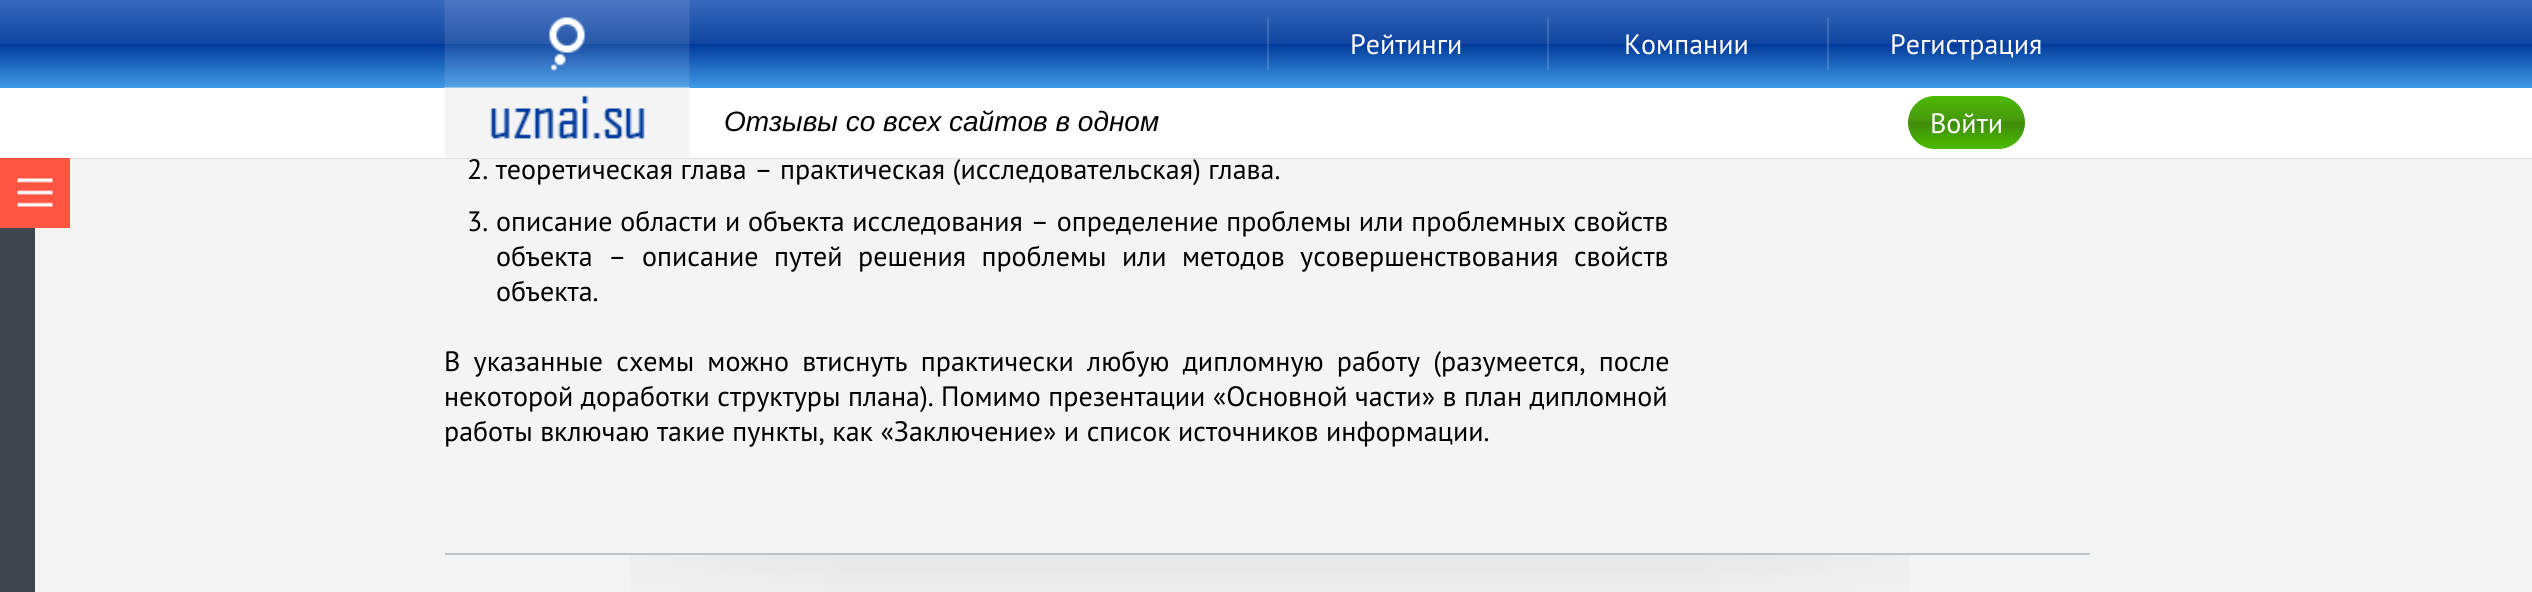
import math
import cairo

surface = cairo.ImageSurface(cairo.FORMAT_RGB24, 2532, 592)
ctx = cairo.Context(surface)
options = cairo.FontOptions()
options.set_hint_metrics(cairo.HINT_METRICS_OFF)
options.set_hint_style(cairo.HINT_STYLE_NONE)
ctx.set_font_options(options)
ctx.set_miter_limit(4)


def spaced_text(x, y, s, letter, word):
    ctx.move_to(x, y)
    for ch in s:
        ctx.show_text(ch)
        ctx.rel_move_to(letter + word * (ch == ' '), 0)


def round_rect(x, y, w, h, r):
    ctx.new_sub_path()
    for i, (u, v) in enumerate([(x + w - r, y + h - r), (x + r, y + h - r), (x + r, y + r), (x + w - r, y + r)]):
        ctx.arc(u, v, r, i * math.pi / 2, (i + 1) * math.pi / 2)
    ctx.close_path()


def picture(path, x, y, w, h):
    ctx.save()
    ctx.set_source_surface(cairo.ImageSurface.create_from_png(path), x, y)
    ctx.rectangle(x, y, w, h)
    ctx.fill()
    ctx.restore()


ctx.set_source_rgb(0.957, 0.957, 0.957)
ctx.paint()
ctx.set_source_rgb(0.863, 0.863, 0.863)
ctx.rectangle(70, 158, 2462, 1)
ctx.fill()
ctx.set_source_rgb(1, 1, 1)
ctx.rectangle(0, 88, 2532, 70)
ctx.fill()
gradient = cairo.LinearGradient(1266, 0, 1266, 88)
gradient.add_color_stop_rgba(0, 0.216, 0.408, 0.737, 1)
gradient.add_color_stop_rgba(0.5, 0.059, 0.271, 0.627, 1)
gradient.add_color_stop_rgba(0.5, 0, 0.227, 0.612, 1)
gradient.add_color_stop_rgba(1, 0.251, 0.608, 0.902, 1)
ctx.set_source(gradient)
ctx.rectangle(0, 0, 2532, 88)
ctx.fill()
gradient = cairo.LinearGradient(1266, 0, 1266, 88)
gradient.add_color_stop_rgba(0, 0.333, 0.498, 0.776, 1)
gradient.add_color_stop_rgba(0.5, 0.2, 0.38, 0.682, 1)
gradient.add_color_stop_rgba(0.5, 0.149, 0.345, 0.671, 1)
gradient.add_color_stop_rgba(1, 0.365, 0.667, 0.918, 1)
ctx.set_source(gradient)
ctx.rectangle(1827, 18, 2, 52)
ctx.fill()
picture("img1.png", 444, 0, 246, 88)
ctx.set_source_rgba(1, 1, 1, 0.15)
ctx.rectangle(1267, 18, 2, 52)
ctx.fill()
ctx.select_font_face("PT Sans")
ctx.set_font_size(28)
ctx.set_source_rgb(1, 1, 1)
ctx.move_to(1350, 54)
ctx.show_text("Рейтинги")
ctx.set_source_rgba(1, 1, 1, 0.15)
ctx.rectangle(1547, 18, 2, 52)
ctx.fill()
ctx.set_source_rgb(1, 1, 1)
ctx.move_to(1624, 54)
ctx.show_text("Компании")
ctx.move_to(1890, 54)
ctx.show_text("Регистрация")
picture("img2.png", 444, 87, 246, 71)
ctx.select_font_face("Liberation Sans", cairo.FONT_SLANT_ITALIC)
ctx.set_source_rgb(0, 0, 0)
ctx.move_to(724, 131)
ctx.show_text("Отзывы со всех сайтов в одном")
gradient = cairo.LinearGradient(1966, 96, 1966, 149)
gradient.add_color_stop_rgba(0, 0.302, 0.729, 0, 1)
gradient.add_color_stop_rgba(0.5, 0.278, 0.588, 0.063, 1)
gradient.add_color_stop_rgba(0.5, 0.243, 0.549, 0.035, 1)
gradient.add_color_stop_rgba(1, 0.302, 0.737, 0, 1)
ctx.set_source(gradient)
round_rect(1908, 96, 117, 53, 26.5)
ctx.fill()
ctx.select_font_face("PT Sans")
ctx.set_source_rgb(1, 1, 1)
ctx.move_to(1930, 133)
ctx.show_text("Войти")
ctx.set_source_rgb(0.243, 0.271, 0.298)
ctx.rectangle(0, 228, 35, 364)
ctx.fill()
ctx.set_source_rgb(0.996, 0.329, 0.259)
ctx.rectangle(0, 159, 70, 69)
ctx.fill()
ctx.set_source_rgb(0.898, 0.298, 0.231)
ctx.rectangle(0, 158, 70, 1)
ctx.fill()
picture("img3.png", 17, 178, 36, 29)
ctx.set_source_rgb(0, 0, 0)
ctx.move_to(467, 179)
ctx.show_text("2. теоретическая глава – практическая (исследовательская) глава.")
ctx.move_to(467, 231)
ctx.show_text("3.")
spaced_text(496, 231, "описание области и объекта исследования – определение проблемы или проблемных свойств", 0, 0.25)
spaced_text(496, 266, "объекта – описание путей решения проблемы или методов усовершенствования свойств", 0, 8)
ctx.move_to(496, 301)
ctx.show_text("объекта.")
spaced_text(444, 371, "В указанные схемы можно втиснуть практически любую дипломную работу (разумеется, после", 0, 5.75)
ctx.move_to(444, 406)
ctx.show_text("некоторой доработки структуры плана).")
ctx.move_to(941, 406)
ctx.show_text("Помимо презентации «Основной части» в план дипломной")
ctx.move_to(444, 441)
ctx.show_text("работы включаю такие пункты, как «Заключение» и список источников информации.")
picture("img4.png", 629, 555, 1281, 37)
ctx.set_source_rgb(0.741, 0.765, 0.78)
ctx.rectangle(445, 553, 1645, 2)
ctx.fill()
surface.write_to_png("page.png")
